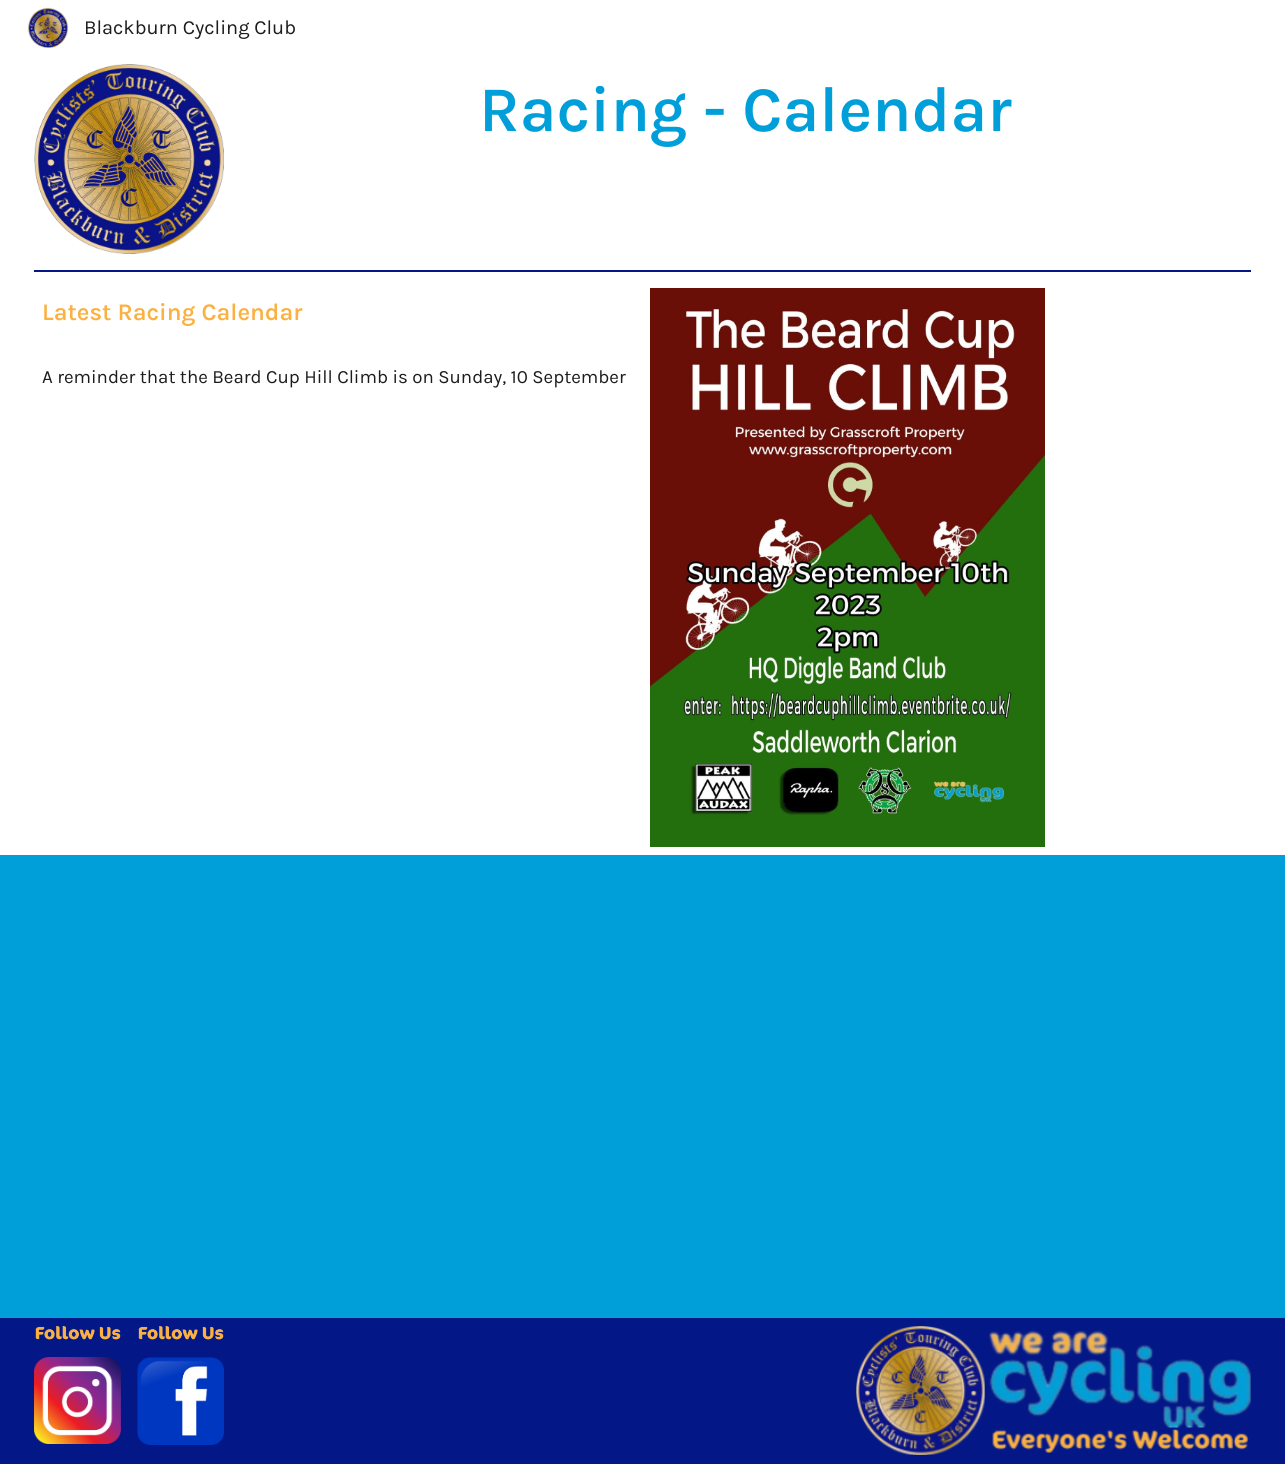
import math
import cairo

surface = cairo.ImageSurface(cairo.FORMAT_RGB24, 1285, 1464)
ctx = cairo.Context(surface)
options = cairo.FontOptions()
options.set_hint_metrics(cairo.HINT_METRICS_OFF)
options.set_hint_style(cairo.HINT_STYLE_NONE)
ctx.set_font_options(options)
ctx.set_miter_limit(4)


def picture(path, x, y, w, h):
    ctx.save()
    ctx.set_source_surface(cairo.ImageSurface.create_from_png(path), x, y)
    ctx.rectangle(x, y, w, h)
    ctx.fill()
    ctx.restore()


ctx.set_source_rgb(0, 0.624, 0.855)
ctx.paint()
ctx.set_source_rgb(1, 1, 1)
ctx.rectangle(0, 0, 1285, 855)
ctx.fill()
picture("img1.png", 27, 7, 42, 41)
ctx.select_font_face("Karla")
ctx.set_font_size(20)
ctx.set_source_rgb(0.11, 0.11, 0.11)
ctx.move_to(84, 34)
ctx.show_text("Blackburn Cycling Club")
picture("img2.png", 34, 64, 190, 190)
ctx.select_font_face("Karla SemiBold")
ctx.set_font_size(64)
ctx.set_source_rgb(0, 0.624, 0.855)
ctx.move_to(479, 131)
ctx.show_text("Racing - Calendar")
ctx.set_source_rgb(0.012, 0.094, 0.525)
ctx.rectangle(34, 270, 1217, 2)
ctx.fill()
ctx.set_font_size(24)
ctx.set_source_rgb(0.984, 0.69, 0.251)
ctx.move_to(42, 320)
ctx.show_text("Latest Racing Calendar")
ctx.select_font_face("Karla")
ctx.set_font_size(18.7)
ctx.set_source_rgb(0.11, 0.11, 0.11)
ctx.move_to(42, 383)
ctx.show_text("A reminder that the Beard Cup Hill Climb is on Sunday, 10 September")
picture("img3.png", 650, 288, 395, 559)
ctx.set_source_rgb(0.012, 0.094, 0.525)
ctx.rectangle(0, 1318, 1285, 146)
ctx.fill()
picture("img4.png", 35, 1326, 86, 14)
picture("img5.png", 34, 1357, 87, 87)
picture("img4.png", 138, 1326, 86, 14)
picture("img6.png", 137, 1357, 87, 88)
picture("img7.png", 856, 1326, 395, 129)
surface.write_to_png("page.png")
